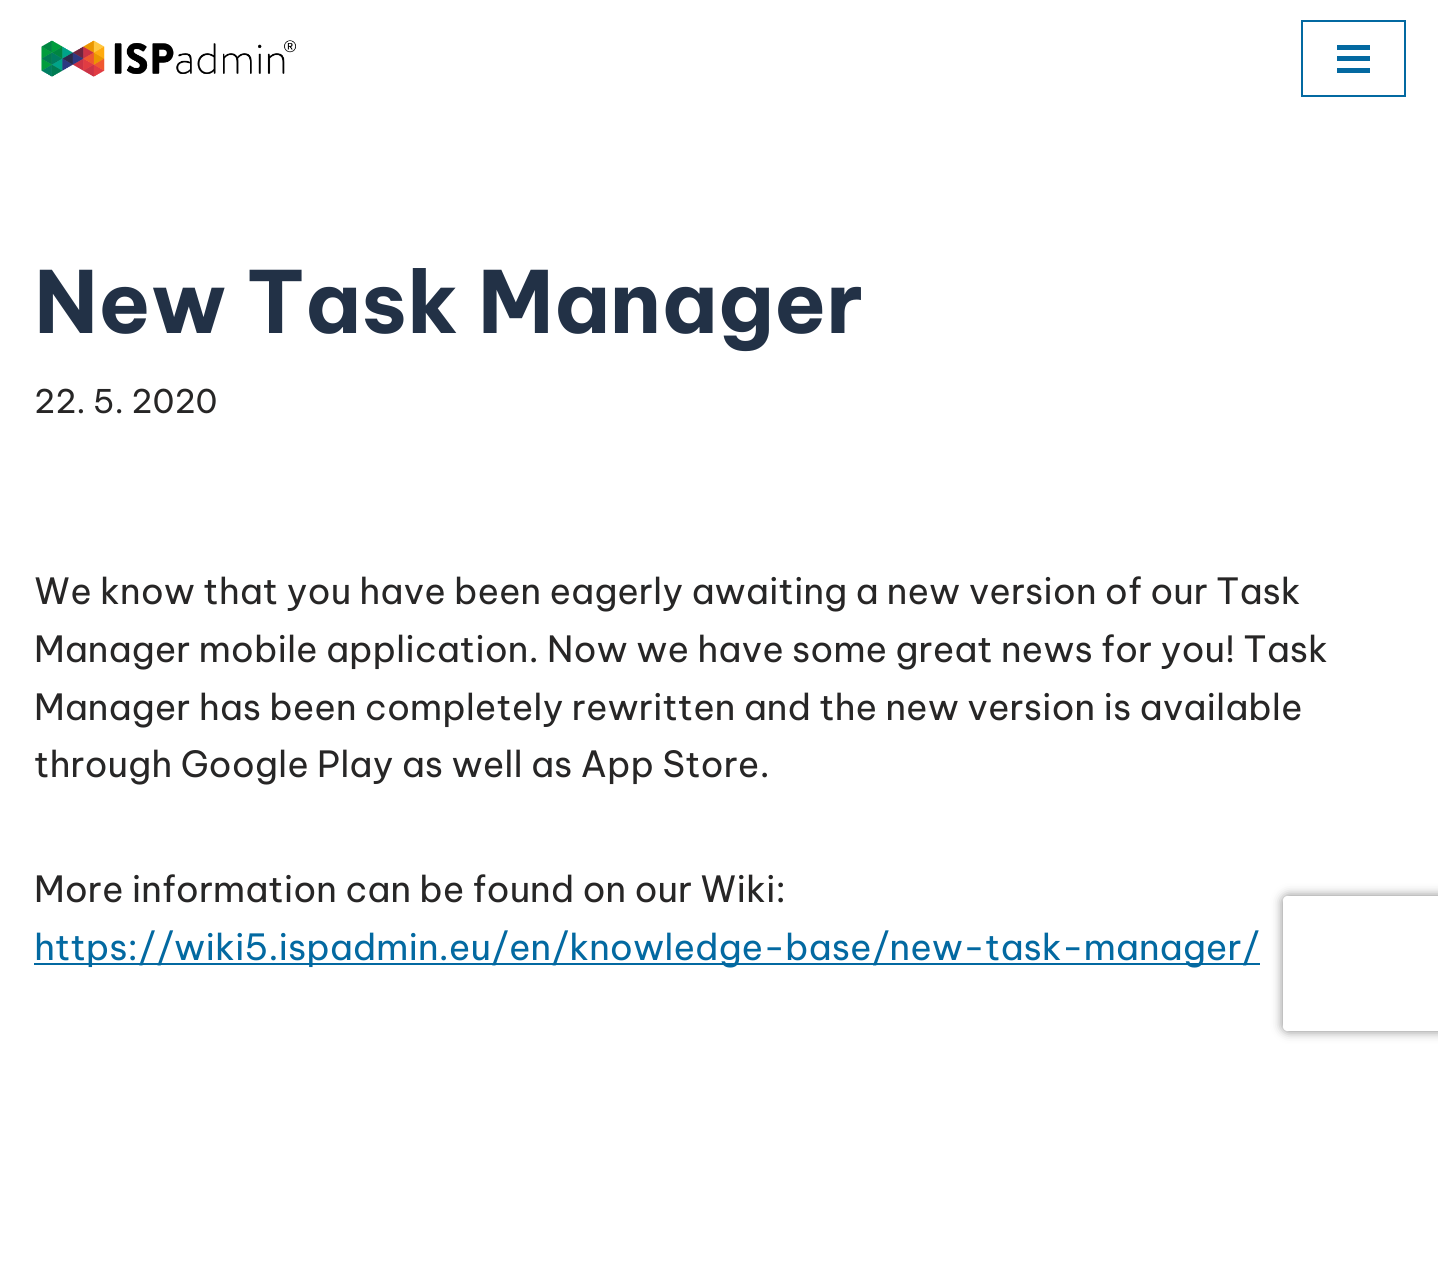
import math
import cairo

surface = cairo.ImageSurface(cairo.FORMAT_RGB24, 1438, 1266)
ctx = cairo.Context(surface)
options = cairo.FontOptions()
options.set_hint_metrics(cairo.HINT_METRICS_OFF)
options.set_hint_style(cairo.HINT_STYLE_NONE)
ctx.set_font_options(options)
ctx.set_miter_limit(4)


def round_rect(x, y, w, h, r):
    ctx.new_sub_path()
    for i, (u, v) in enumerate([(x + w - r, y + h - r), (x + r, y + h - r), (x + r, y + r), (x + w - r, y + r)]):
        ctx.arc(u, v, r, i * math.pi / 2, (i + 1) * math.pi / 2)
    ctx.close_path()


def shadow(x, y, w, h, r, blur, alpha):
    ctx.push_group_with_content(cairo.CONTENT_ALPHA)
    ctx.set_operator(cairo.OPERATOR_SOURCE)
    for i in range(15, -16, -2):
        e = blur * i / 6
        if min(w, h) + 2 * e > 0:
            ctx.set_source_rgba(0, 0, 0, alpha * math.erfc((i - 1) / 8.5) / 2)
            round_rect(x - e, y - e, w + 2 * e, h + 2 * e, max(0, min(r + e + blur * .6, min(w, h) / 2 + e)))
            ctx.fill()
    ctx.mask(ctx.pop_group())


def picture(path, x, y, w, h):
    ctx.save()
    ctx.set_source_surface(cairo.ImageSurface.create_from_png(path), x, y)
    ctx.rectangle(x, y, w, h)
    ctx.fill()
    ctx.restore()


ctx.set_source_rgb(1, 1, 1)
ctx.paint()
picture("img1.png", 41, 40, 255, 37)
ctx.rectangle(1302, 21, 103, 75)
ctx.set_source_rgb(0.012, 0.412, 0.631)
ctx.stroke()
ctx.rectangle(1337, 45, 33, 5)
ctx.fill()
ctx.rectangle(1337, 56, 33, 5)
ctx.fill()
ctx.rectangle(1337, 68, 33, 5)
ctx.fill()
ctx.select_font_face("Be Vietnam Pro", cairo.FONT_SLANT_NORMAL, cairo.FONT_WEIGHT_BOLD)
ctx.set_font_size(85.5)
ctx.set_source_rgb(0.133, 0.192, 0.275)
ctx.move_to(34, 333)
ctx.show_text("New Task Manager")
ctx.select_font_face("Be Vietnam Pro")
ctx.set_font_size(32.5)
ctx.set_source_rgb(0.153, 0.149, 0.149)
ctx.move_to(34, 413)
ctx.show_text("22. 5. 2020")
ctx.set_font_size(36)
ctx.move_to(34, 604)
ctx.show_text("We know that you have been eagerly awaiting a new version of our Task")
ctx.move_to(34, 662)
ctx.show_text("Manager mobile application. Now we have some great news for you! Task")
ctx.move_to(34, 720)
ctx.show_text("Manager has been completely rewritten and the new version is available")
ctx.move_to(34, 777)
ctx.show_text("through Google Play as well as App Store.")
ctx.move_to(34, 902)
ctx.show_text("More information can be found on our Wiki:")
ctx.set_source_rgb(0.012, 0.412, 0.631)
ctx.rectangle(34, 963, 1226, 2)
ctx.fill()
ctx.move_to(34, 960)
ctx.show_text("https://wiki5.ispadmin.eu/en/knowledge-base/new-task-manager/")
ctx.save()
ctx.set_fill_rule(cairo.FILL_RULE_EVEN_ODD)
ctx.new_path()
ctx.move_to(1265, 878)
ctx.line_to(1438, 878)
ctx.line_to(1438, 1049)
ctx.line_to(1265, 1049)
ctx.close_path()
ctx.move_to(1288, 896)
ctx.line_to(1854, 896)
ctx.curve_to(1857, 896, 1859, 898, 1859, 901)
ctx.line_to(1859, 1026)
ctx.curve_to(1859, 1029, 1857, 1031, 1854, 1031)
ctx.line_to(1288, 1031)
ctx.curve_to(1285, 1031, 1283, 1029, 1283, 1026)
ctx.line_to(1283, 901)
ctx.curve_to(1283, 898, 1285, 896, 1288, 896)
ctx.close_path()
ctx.clip()
ctx.set_source_rgb(0.502, 0.502, 0.502)
shadow(1283, 896, 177, 135, 5, 5.5, 1)
ctx.restore()
surface.write_to_png("page.png")
